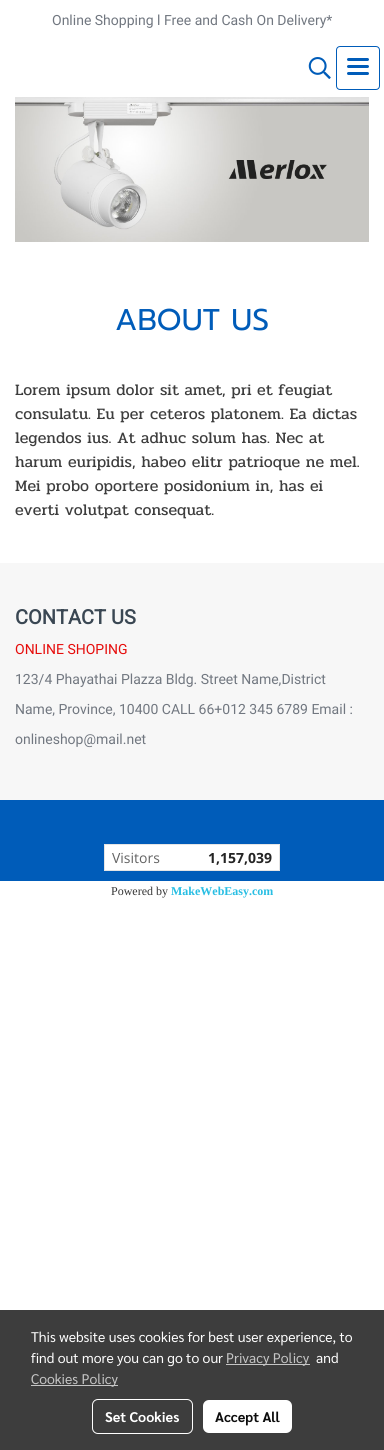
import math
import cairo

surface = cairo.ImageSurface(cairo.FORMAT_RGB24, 384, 1450)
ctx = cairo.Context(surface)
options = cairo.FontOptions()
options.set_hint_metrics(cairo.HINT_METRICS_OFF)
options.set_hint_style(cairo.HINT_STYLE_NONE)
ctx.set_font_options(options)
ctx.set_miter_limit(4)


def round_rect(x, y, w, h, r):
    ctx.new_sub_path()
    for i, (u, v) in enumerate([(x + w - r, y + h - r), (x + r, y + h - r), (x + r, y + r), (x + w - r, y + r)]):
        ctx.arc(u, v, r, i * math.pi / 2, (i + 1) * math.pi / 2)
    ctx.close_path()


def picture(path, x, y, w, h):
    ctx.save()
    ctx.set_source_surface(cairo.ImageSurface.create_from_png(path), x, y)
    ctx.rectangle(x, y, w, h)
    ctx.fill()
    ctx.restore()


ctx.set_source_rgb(1, 1, 1)
ctx.paint()
ctx.select_font_face("Roboto")
ctx.set_font_size(14)
ctx.set_source_rgb(0.443, 0.467, 0.502)
ctx.move_to(52, 25)
ctx.show_text("Online Shopping l Free and Cash On Delivery*")
picture("img1.png", 308, 57, 23, 22)
round_rect(336.5, 46.5, 43, 43, 3.5)
ctx.set_source_rgb(0, 0.361, 0.725)
ctx.set_line_width(1)
ctx.stroke()
round_rect(347, 65, 22, 3, 1.5)
ctx.fill()
round_rect(347, 58, 22, 3, 1.5)
ctx.fill()
round_rect(347, 72, 22, 3, 1.5)
ctx.fill()
picture("img2.png", 15, 97, 354, 145)
ctx.select_font_face("Prompt")
ctx.set_font_size(30)
ctx.move_to(115, 330)
ctx.show_text("ABOUT US")
ctx.select_font_face("Pridi")
ctx.set_font_size(16)
ctx.set_source_rgb(0.239, 0.239, 0.239)
ctx.move_to(15, 395)
ctx.show_text("Lorem ipsum dolor sit amet, pri et feugiat")
ctx.move_to(15, 419)
ctx.show_text("consulatu. Eu per ceteros platonem. Ea dictas")
ctx.move_to(15, 443)
ctx.show_text("legendos ius. At adhuc solum has. Nec at")
ctx.move_to(15, 467)
ctx.show_text("harum euripidis, habeo elitr patrioque ne mel.")
ctx.move_to(15, 491)
ctx.show_text("Mei probo oportere posidonium in, has ei")
ctx.move_to(15, 515)
ctx.show_text("everti volutpat consequat.")
ctx.set_source_rgb(0.965, 0.965, 0.965)
ctx.rectangle(0, 563, 384, 237)
ctx.fill()
ctx.select_font_face("Roboto", cairo.FONT_SLANT_NORMAL, cairo.FONT_WEIGHT_BOLD)
ctx.set_font_size(20)
ctx.set_source_rgb(0.227, 0.278, 0.325)
ctx.move_to(15, 624)
ctx.show_text("CONTACT US")
ctx.select_font_face("Roboto")
ctx.set_font_size(14)
ctx.set_source_rgb(0.902, 0.047, 0.043)
ctx.move_to(15, 654)
ctx.show_text("ONLINE SHOPING")
ctx.set_source_rgb(0.443, 0.467, 0.502)
ctx.move_to(15, 684)
ctx.show_text("123/4 Phayathai Plazza Bldg. Street Name,District")
ctx.move_to(15, 714)
ctx.show_text("Name, Province, 10400 CALL 66+012 345 6789 Email :")
ctx.move_to(15, 744)
ctx.show_text("onlineshop@mail.net")
ctx.set_source_rgb(0, 0.361, 0.725)
ctx.rectangle(0, 800, 384, 81)
ctx.fill()
ctx.set_source_rgb(1, 1, 1)
ctx.rectangle(104.5, 844.5, 175, 26)
ctx.fill_preserve()
ctx.set_source_rgb(0.898, 0.898, 0.898)
ctx.stroke()
ctx.select_font_face("Open Sans")
ctx.set_source_rgb(0.388, 0.388, 0.388)
ctx.move_to(112, 863)
ctx.show_text("Visitors")
ctx.select_font_face("Open Sans", cairo.FONT_SLANT_NORMAL, cairo.FONT_WEIGHT_BOLD)
ctx.set_source_rgb(0.141, 0.141, 0.141)
ctx.move_to(208, 863)
ctx.show_text("1,157,039")
ctx.select_font_face("Liberation Serif")
ctx.set_font_size(12)
ctx.set_source_rgb(0.208, 0.208, 0.208)
ctx.move_to(111, 895)
ctx.show_text("Powered by")
ctx.select_font_face("Liberation Serif", cairo.FONT_SLANT_NORMAL, cairo.FONT_WEIGHT_BOLD)
ctx.set_source_rgb(0.157, 0.745, 0.89)
ctx.move_to(171, 895)
ctx.show_text("MakeWebEasy.com")
ctx.set_source_rgb(0.239, 0.239, 0.239)
ctx.rectangle(0, 1310, 384, 140)
ctx.fill()
ctx.select_font_face("Sarabun")
ctx.set_font_size(14)
ctx.set_source_rgb(1, 1, 1)
ctx.move_to(31, 1342)
ctx.show_text("This website uses cookies for best user experience, to")
ctx.move_to(31, 1363)
ctx.show_text("find out more you can go to our")
ctx.set_source_rgb(0.773, 0.773, 0.773)
ctx.rectangle(226, 1364, 84, 1)
ctx.fill()
ctx.move_to(226, 1363)
ctx.show_text("Privacy Policy")
ctx.set_source_rgb(1, 1, 1)
ctx.move_to(316, 1363)
ctx.show_text("and")
ctx.set_source_rgb(0.773, 0.773, 0.773)
ctx.rectangle(31, 1385, 87, 1)
ctx.fill()
ctx.move_to(31, 1384)
ctx.show_text("Cookies Policy")
round_rect(92.5, 1399.5, 100, 34, 5.5)
ctx.set_source_rgb(1, 1, 1)
ctx.stroke()
ctx.select_font_face("Sarabun", cairo.FONT_SLANT_NORMAL, cairo.FONT_WEIGHT_BOLD)
ctx.move_to(105, 1422)
ctx.show_text("Set Cookies")
round_rect(203, 1400, 89, 33, 6)
ctx.fill()
ctx.set_source_rgb(0.051, 0.051, 0.051)
ctx.move_to(215, 1422)
ctx.show_text("Accept All")
surface.write_to_png("page.png")
